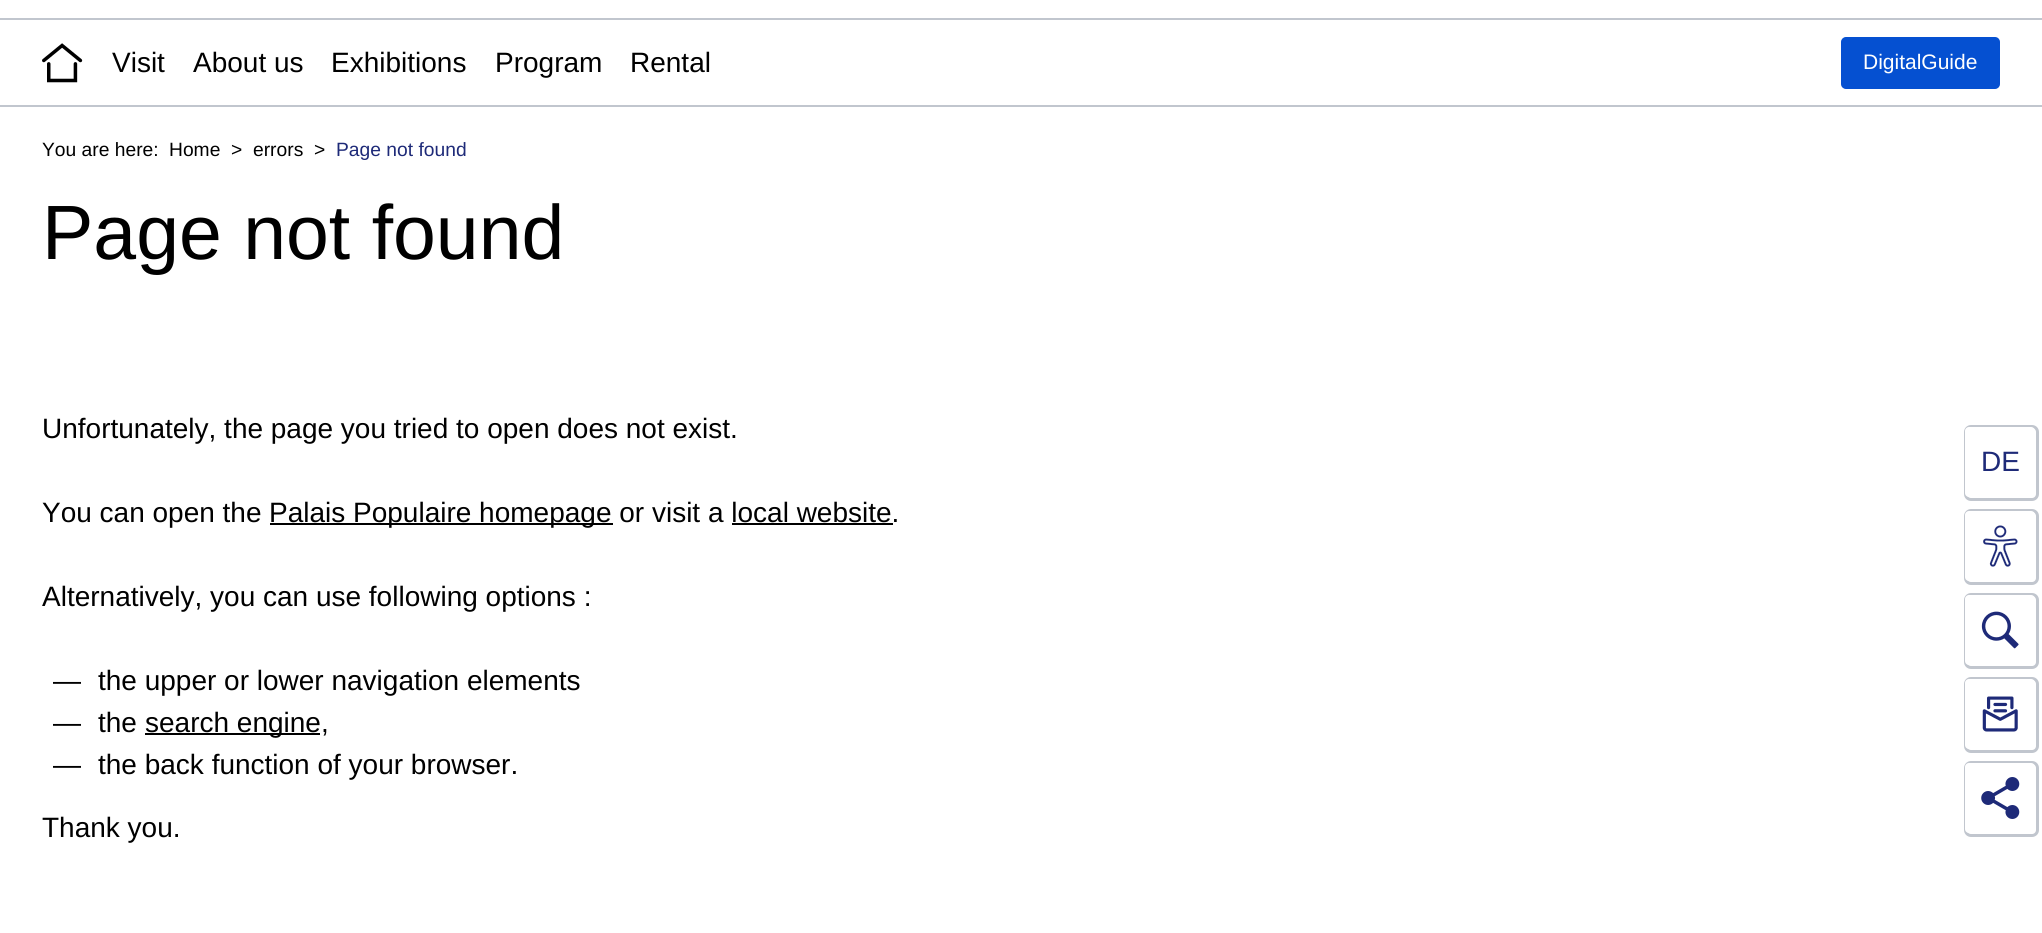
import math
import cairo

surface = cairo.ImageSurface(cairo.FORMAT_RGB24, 2042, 933)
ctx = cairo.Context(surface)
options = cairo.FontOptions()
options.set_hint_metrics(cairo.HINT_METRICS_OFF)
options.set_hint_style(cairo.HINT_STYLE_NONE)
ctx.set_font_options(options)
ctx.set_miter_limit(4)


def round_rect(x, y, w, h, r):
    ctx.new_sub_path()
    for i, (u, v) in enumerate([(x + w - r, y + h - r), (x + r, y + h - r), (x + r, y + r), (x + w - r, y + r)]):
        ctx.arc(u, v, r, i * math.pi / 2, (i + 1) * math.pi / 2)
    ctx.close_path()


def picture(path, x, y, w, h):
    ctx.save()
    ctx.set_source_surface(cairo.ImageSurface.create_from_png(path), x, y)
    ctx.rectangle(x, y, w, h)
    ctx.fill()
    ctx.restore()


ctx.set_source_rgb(1, 1, 1)
ctx.paint()
ctx.set_source_rgb(0.757, 0.776, 0.808)
ctx.rectangle(0, 18, 2042, 2)
ctx.fill()
ctx.rectangle(0, 105, 2042, 2)
ctx.fill()
picture("img1.png", 42, 43, 41, 40)
ctx.select_font_face("Liberation Sans")
ctx.set_font_size(28)
ctx.set_source_rgb(0, 0, 0)
ctx.move_to(112, 72)
ctx.show_text("Visit")
ctx.move_to(193, 72)
ctx.show_text("About us")
ctx.move_to(331, 72)
ctx.show_text("Exhibitions")
ctx.move_to(495, 72)
ctx.show_text("Program")
ctx.move_to(630, 72)
ctx.show_text("Rental")
ctx.set_source_rgb(0.02, 0.314, 0.82)
round_rect(1842, 38, 157, 50, 4)
ctx.fill_preserve()
ctx.stroke()
ctx.set_font_size(21)
ctx.set_source_rgb(1, 1, 1)
ctx.move_to(1863, 69)
ctx.show_text("DigitalGuide")
ctx.set_font_size(19.25)
ctx.set_source_rgb(0, 0, 0)
ctx.move_to(42, 156)
ctx.show_text("You are here:")
ctx.move_to(169, 156)
ctx.show_text("Home")
ctx.move_to(231, 156)
ctx.show_text(">")
ctx.move_to(253, 156)
ctx.show_text("errors")
ctx.move_to(314, 156)
ctx.show_text(">")
ctx.set_source_rgb(0.118, 0.165, 0.471)
ctx.move_to(336, 156)
ctx.show_text("Page not found")
ctx.set_font_size(77)
ctx.set_source_rgb(0, 0, 0)
ctx.move_to(42, 259)
ctx.show_text("Page not found")
ctx.set_font_size(28)
ctx.move_to(42, 438)
ctx.show_text("Unfortunately, the page you tried to open does not exist.")
ctx.move_to(42, 522)
ctx.show_text("You can open the")
ctx.rectangle(270, 523, 343, 2)
ctx.fill()
ctx.move_to(269, 522)
ctx.show_text("Palais Populaire homepage or visit a local website.")
ctx.rectangle(732, 523, 161, 2)
ctx.fill()
ctx.move_to(42, 606)
ctx.show_text("Alternatively, you can use following options :")
ctx.move_to(53, 690)
ctx.show_text("—")
ctx.move_to(98, 690)
ctx.show_text("the upper or lower navigation elements")
ctx.move_to(53, 732)
ctx.show_text("—")
ctx.move_to(98, 732)
ctx.show_text("the")
ctx.rectangle(145, 733, 175, 2)
ctx.fill()
ctx.move_to(145, 732)
ctx.show_text("search engine,")
ctx.move_to(53, 774)
ctx.show_text("—")
ctx.move_to(98, 774)
ctx.show_text("the back function of your browser.")
ctx.move_to(42, 837)
ctx.show_text("Thank you.")
round_rect(1965.5, 426.5, 72, 73, 5.5)
ctx.set_source_rgb(0.757, 0.776, 0.808)
ctx.set_line_width(3)
ctx.stroke()
ctx.set_source_rgb(1, 1, 1)
round_rect(1965, 427, 70, 70, 4)
ctx.fill()
ctx.set_source_rgb(0.118, 0.165, 0.471)
ctx.move_to(1981, 471)
ctx.show_text("DE")
round_rect(1965.5, 510.5, 72, 73, 5.5)
ctx.set_source_rgb(0.757, 0.776, 0.808)
ctx.stroke()
ctx.set_source_rgb(1, 1, 1)
round_rect(1965, 511, 70, 70, 4)
ctx.fill()
picture("img2.png", 1983, 525, 35, 42)
round_rect(1965.5, 594.5, 72, 73, 5.5)
ctx.set_source_rgb(0.757, 0.776, 0.808)
ctx.stroke()
ctx.set_source_rgb(1, 1, 1)
round_rect(1965, 595, 70, 70, 4)
ctx.fill()
picture("img3.png", 1981, 611, 38, 38)
round_rect(1965.5, 678.5, 72, 73, 5.5)
ctx.set_source_rgb(0.757, 0.776, 0.808)
ctx.stroke()
ctx.set_source_rgb(1, 1, 1)
round_rect(1965, 679, 70, 70, 4)
ctx.fill()
picture("img4.png", 1982, 696, 36, 36)
round_rect(1965.5, 762.5, 72, 73, 5.5)
ctx.set_source_rgb(0.757, 0.776, 0.808)
ctx.stroke()
ctx.set_source_rgb(1, 1, 1)
round_rect(1965, 763, 70, 70, 4)
ctx.fill()
picture("img5.png", 1981, 777, 39, 42)
surface.write_to_png("page.png")
